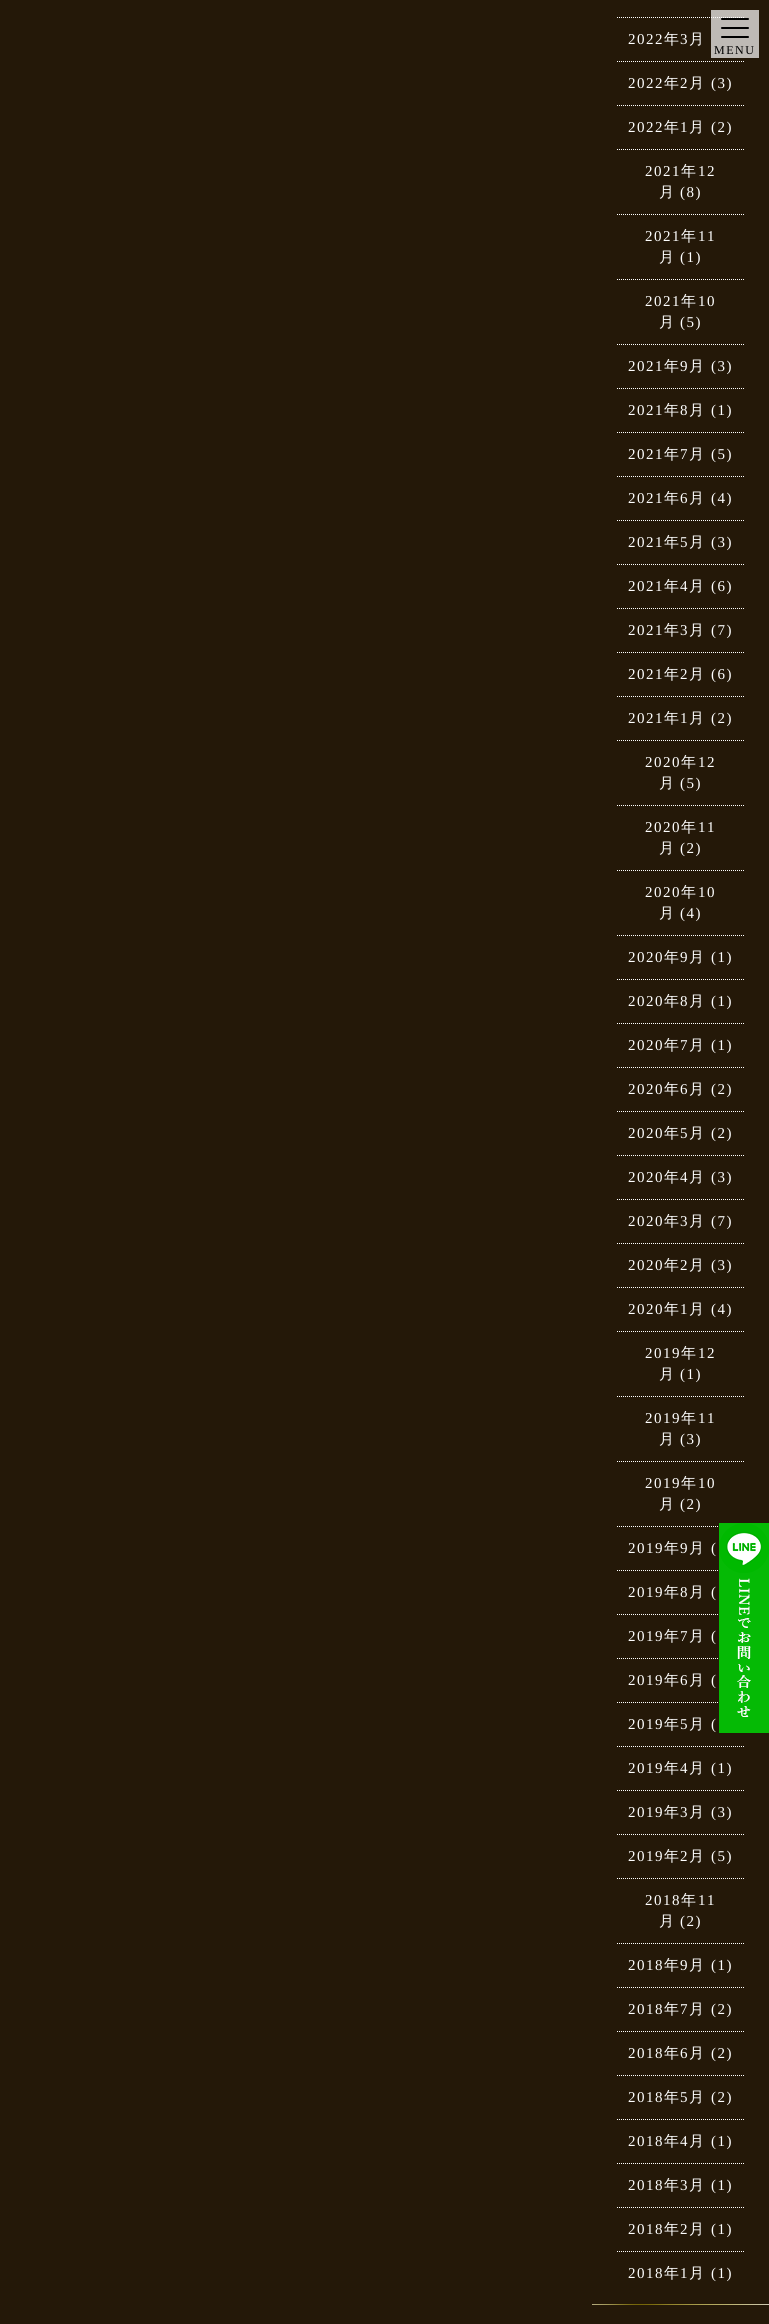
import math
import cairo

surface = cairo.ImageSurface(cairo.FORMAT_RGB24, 769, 2324)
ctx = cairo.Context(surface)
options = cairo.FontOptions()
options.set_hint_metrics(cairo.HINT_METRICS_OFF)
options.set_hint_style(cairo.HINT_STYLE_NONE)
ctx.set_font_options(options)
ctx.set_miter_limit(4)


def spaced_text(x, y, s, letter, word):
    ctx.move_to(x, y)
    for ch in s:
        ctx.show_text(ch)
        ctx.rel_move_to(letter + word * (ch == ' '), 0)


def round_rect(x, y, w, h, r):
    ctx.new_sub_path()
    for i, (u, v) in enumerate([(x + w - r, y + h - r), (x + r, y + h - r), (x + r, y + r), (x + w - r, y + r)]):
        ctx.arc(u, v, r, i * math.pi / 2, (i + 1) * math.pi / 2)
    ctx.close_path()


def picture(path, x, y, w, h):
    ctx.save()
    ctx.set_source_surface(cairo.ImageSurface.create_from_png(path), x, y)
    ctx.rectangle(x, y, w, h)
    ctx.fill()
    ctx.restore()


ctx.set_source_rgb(0.141, 0.094, 0.035)
ctx.paint()
picture("img1.png", 592, 2304, 177, 1)
ctx.new_path()
ctx.move_to(617, 17.5)
ctx.line_to(744, 17.5)
ctx.set_source_rgb(1, 1, 1)
ctx.set_line_width(1)
ctx.set_dash([1, 1])
ctx.stroke()
ctx.new_path()
ctx.move_to(617, 61.5)
ctx.line_to(744, 61.5)
ctx.stroke()
ctx.select_font_face("Liberation Serif")
ctx.set_font_size(15)
spaced_text(628, 44, "2022", 1.5, 0)
ctx.select_font_face("WenQuanYi Zen Hei Medium")
spaced_text(664, 44, "年", 1.5, 0)
ctx.select_font_face("Liberation Serif")
spaced_text(680, 44, "3", 1.5, 0)
ctx.select_font_face("WenQuanYi Zen Hei Medium")
spaced_text(689, 44, "月", 1.5, 0)
ctx.new_path()
ctx.move_to(617, 105.5)
ctx.line_to(744, 105.5)
ctx.stroke()
ctx.select_font_face("Liberation Serif")
spaced_text(628, 88, "2022", 1.5, 0)
ctx.select_font_face("WenQuanYi Zen Hei Medium")
spaced_text(664, 88, "年", 1.5, 0)
ctx.select_font_face("Liberation Serif")
spaced_text(680, 88, "2", 1.5, 0)
ctx.select_font_face("WenQuanYi Zen Hei Medium")
spaced_text(689, 88, "月", 1.5, 0)
ctx.select_font_face("Liberation Serif")
spaced_text(711, 88, "(3)", 1.5, 0)
ctx.new_path()
ctx.move_to(617, 149.5)
ctx.line_to(744, 149.5)
ctx.stroke()
spaced_text(628, 132, "2022", 1.5, 0)
ctx.select_font_face("WenQuanYi Zen Hei Medium")
spaced_text(664, 132, "年", 1.5, 0)
ctx.select_font_face("Liberation Serif")
spaced_text(680, 132, "1", 1.5, 0)
ctx.select_font_face("WenQuanYi Zen Hei Medium")
spaced_text(689, 132, "月", 1.5, 0)
ctx.select_font_face("Liberation Serif")
spaced_text(711, 132, "(2)", 1.5, 0)
ctx.new_path()
ctx.move_to(617, 214.5)
ctx.line_to(744, 214.5)
ctx.stroke()
spaced_text(645, 176, "2021", 1.5, 0)
ctx.select_font_face("WenQuanYi Zen Hei Medium")
spaced_text(681, 176, "年", 1.5, 0)
ctx.select_font_face("Liberation Serif")
spaced_text(698, 176, "12", 1.5, 0)
ctx.select_font_face("WenQuanYi Zen Hei Medium")
spaced_text(659, 197, "月", 1.5, 0)
ctx.select_font_face("Liberation Serif")
spaced_text(680, 197, "(8)", 1.5, 0)
ctx.new_path()
ctx.move_to(617, 279.5)
ctx.line_to(744, 279.5)
ctx.stroke()
spaced_text(645, 241, "2021", 1.5, 0)
ctx.select_font_face("WenQuanYi Zen Hei Medium")
spaced_text(681, 241, "年", 1.5, 0)
ctx.select_font_face("Liberation Serif")
spaced_text(698, 241, "11", 1.5, 0)
ctx.select_font_face("WenQuanYi Zen Hei Medium")
spaced_text(659, 262, "月", 1.5, 0)
ctx.select_font_face("Liberation Serif")
spaced_text(680, 262, "(1)", 1.5, 0)
ctx.new_path()
ctx.move_to(617, 344.5)
ctx.line_to(744, 344.5)
ctx.stroke()
spaced_text(645, 306, "2021", 1.5, 0)
ctx.select_font_face("WenQuanYi Zen Hei Medium")
spaced_text(681, 306, "年", 1.5, 0)
ctx.select_font_face("Liberation Serif")
spaced_text(698, 306, "10", 1.5, 0)
ctx.select_font_face("WenQuanYi Zen Hei Medium")
spaced_text(659, 327, "月", 1.5, 0)
ctx.select_font_face("Liberation Serif")
spaced_text(680, 327, "(5)", 1.5, 0)
ctx.new_path()
ctx.move_to(617, 388.5)
ctx.line_to(744, 388.5)
ctx.stroke()
spaced_text(628, 371, "2021", 1.5, 0)
ctx.select_font_face("WenQuanYi Zen Hei Medium")
spaced_text(664, 371, "年", 1.5, 0)
ctx.select_font_face("Liberation Serif")
spaced_text(680, 371, "9", 1.5, 0)
ctx.select_font_face("WenQuanYi Zen Hei Medium")
spaced_text(689, 371, "月", 1.5, 0)
ctx.select_font_face("Liberation Serif")
spaced_text(711, 371, "(3)", 1.5, 0)
ctx.new_path()
ctx.move_to(617, 432.5)
ctx.line_to(744, 432.5)
ctx.stroke()
spaced_text(628, 415, "2021", 1.5, 0)
ctx.select_font_face("WenQuanYi Zen Hei Medium")
spaced_text(664, 415, "年", 1.5, 0)
ctx.select_font_face("Liberation Serif")
spaced_text(680, 415, "8", 1.5, 0)
ctx.select_font_face("WenQuanYi Zen Hei Medium")
spaced_text(689, 415, "月", 1.5, 0)
ctx.select_font_face("Liberation Serif")
spaced_text(711, 415, "(1)", 1.5, 0)
ctx.new_path()
ctx.move_to(617, 476.5)
ctx.line_to(744, 476.5)
ctx.stroke()
spaced_text(628, 459, "2021", 1.5, 0)
ctx.select_font_face("WenQuanYi Zen Hei Medium")
spaced_text(664, 459, "年", 1.5, 0)
ctx.select_font_face("Liberation Serif")
spaced_text(680, 459, "7", 1.5, 0)
ctx.select_font_face("WenQuanYi Zen Hei Medium")
spaced_text(689, 459, "月", 1.5, 0)
ctx.select_font_face("Liberation Serif")
spaced_text(711, 459, "(5)", 1.5, 0)
ctx.new_path()
ctx.move_to(617, 520.5)
ctx.line_to(744, 520.5)
ctx.stroke()
spaced_text(628, 503, "2021", 1.5, 0)
ctx.select_font_face("WenQuanYi Zen Hei Medium")
spaced_text(664, 503, "年", 1.5, 0)
ctx.select_font_face("Liberation Serif")
spaced_text(680, 503, "6", 1.5, 0)
ctx.select_font_face("WenQuanYi Zen Hei Medium")
spaced_text(689, 503, "月", 1.5, 0)
ctx.select_font_face("Liberation Serif")
spaced_text(711, 503, "(4)", 1.5, 0)
ctx.new_path()
ctx.move_to(617, 564.5)
ctx.line_to(744, 564.5)
ctx.stroke()
spaced_text(628, 547, "2021", 1.5, 0)
ctx.select_font_face("WenQuanYi Zen Hei Medium")
spaced_text(664, 547, "年", 1.5, 0)
ctx.select_font_face("Liberation Serif")
spaced_text(680, 547, "5", 1.5, 0)
ctx.select_font_face("WenQuanYi Zen Hei Medium")
spaced_text(689, 547, "月", 1.5, 0)
ctx.select_font_face("Liberation Serif")
spaced_text(711, 547, "(3)", 1.5, 0)
ctx.new_path()
ctx.move_to(617, 608.5)
ctx.line_to(744, 608.5)
ctx.stroke()
spaced_text(628, 591, "2021", 1.5, 0)
ctx.select_font_face("WenQuanYi Zen Hei Medium")
spaced_text(664, 591, "年", 1.5, 0)
ctx.select_font_face("Liberation Serif")
spaced_text(680, 591, "4", 1.5, 0)
ctx.select_font_face("WenQuanYi Zen Hei Medium")
spaced_text(689, 591, "月", 1.5, 0)
ctx.select_font_face("Liberation Serif")
spaced_text(711, 591, "(6)", 1.5, 0)
ctx.new_path()
ctx.move_to(617, 652.5)
ctx.line_to(744, 652.5)
ctx.stroke()
spaced_text(628, 635, "2021", 1.5, 0)
ctx.select_font_face("WenQuanYi Zen Hei Medium")
spaced_text(664, 635, "年", 1.5, 0)
ctx.select_font_face("Liberation Serif")
spaced_text(680, 635, "3", 1.5, 0)
ctx.select_font_face("WenQuanYi Zen Hei Medium")
spaced_text(689, 635, "月", 1.5, 0)
ctx.select_font_face("Liberation Serif")
spaced_text(711, 635, "(7)", 1.5, 0)
ctx.new_path()
ctx.move_to(617, 696.5)
ctx.line_to(744, 696.5)
ctx.stroke()
spaced_text(628, 679, "2021", 1.5, 0)
ctx.select_font_face("WenQuanYi Zen Hei Medium")
spaced_text(664, 679, "年", 1.5, 0)
ctx.select_font_face("Liberation Serif")
spaced_text(680, 679, "2", 1.5, 0)
ctx.select_font_face("WenQuanYi Zen Hei Medium")
spaced_text(689, 679, "月", 1.5, 0)
ctx.select_font_face("Liberation Serif")
spaced_text(711, 679, "(6)", 1.5, 0)
ctx.new_path()
ctx.move_to(617, 740.5)
ctx.line_to(744, 740.5)
ctx.stroke()
spaced_text(628, 723, "2021", 1.5, 0)
ctx.select_font_face("WenQuanYi Zen Hei Medium")
spaced_text(664, 723, "年", 1.5, 0)
ctx.select_font_face("Liberation Serif")
spaced_text(680, 723, "1", 1.5, 0)
ctx.select_font_face("WenQuanYi Zen Hei Medium")
spaced_text(689, 723, "月", 1.5, 0)
ctx.select_font_face("Liberation Serif")
spaced_text(711, 723, "(2)", 1.5, 0)
ctx.new_path()
ctx.move_to(617, 805.5)
ctx.line_to(744, 805.5)
ctx.stroke()
spaced_text(645, 767, "2020", 1.5, 0)
ctx.select_font_face("WenQuanYi Zen Hei Medium")
spaced_text(681, 767, "年", 1.5, 0)
ctx.select_font_face("Liberation Serif")
spaced_text(698, 767, "12", 1.5, 0)
ctx.select_font_face("WenQuanYi Zen Hei Medium")
spaced_text(659, 788, "月", 1.5, 0)
ctx.select_font_face("Liberation Serif")
spaced_text(680, 788, "(5)", 1.5, 0)
ctx.new_path()
ctx.move_to(617, 870.5)
ctx.line_to(744, 870.5)
ctx.stroke()
spaced_text(645, 832, "2020", 1.5, 0)
ctx.select_font_face("WenQuanYi Zen Hei Medium")
spaced_text(681, 832, "年", 1.5, 0)
ctx.select_font_face("Liberation Serif")
spaced_text(698, 832, "11", 1.5, 0)
ctx.select_font_face("WenQuanYi Zen Hei Medium")
spaced_text(659, 853, "月", 1.5, 0)
ctx.select_font_face("Liberation Serif")
spaced_text(680, 853, "(2)", 1.5, 0)
ctx.new_path()
ctx.move_to(617, 935.5)
ctx.line_to(744, 935.5)
ctx.stroke()
spaced_text(645, 897, "2020", 1.5, 0)
ctx.select_font_face("WenQuanYi Zen Hei Medium")
spaced_text(681, 897, "年", 1.5, 0)
ctx.select_font_face("Liberation Serif")
spaced_text(698, 897, "10", 1.5, 0)
ctx.select_font_face("WenQuanYi Zen Hei Medium")
spaced_text(659, 918, "月", 1.5, 0)
ctx.select_font_face("Liberation Serif")
spaced_text(680, 918, "(4)", 1.5, 0)
ctx.new_path()
ctx.move_to(617, 979.5)
ctx.line_to(744, 979.5)
ctx.stroke()
spaced_text(628, 962, "2020", 1.5, 0)
ctx.select_font_face("WenQuanYi Zen Hei Medium")
spaced_text(664, 962, "年", 1.5, 0)
ctx.select_font_face("Liberation Serif")
spaced_text(680, 962, "9", 1.5, 0)
ctx.select_font_face("WenQuanYi Zen Hei Medium")
spaced_text(689, 962, "月", 1.5, 0)
ctx.select_font_face("Liberation Serif")
spaced_text(711, 962, "(1)", 1.5, 0)
ctx.new_path()
ctx.move_to(617, 1023.5)
ctx.line_to(744, 1023.5)
ctx.stroke()
spaced_text(628, 1006, "2020", 1.5, 0)
ctx.select_font_face("WenQuanYi Zen Hei Medium")
spaced_text(664, 1006, "年", 1.5, 0)
ctx.select_font_face("Liberation Serif")
spaced_text(680, 1006, "8", 1.5, 0)
ctx.select_font_face("WenQuanYi Zen Hei Medium")
spaced_text(689, 1006, "月", 1.5, 0)
ctx.select_font_face("Liberation Serif")
spaced_text(711, 1006, "(1)", 1.5, 0)
ctx.new_path()
ctx.move_to(617, 1067.5)
ctx.line_to(744, 1067.5)
ctx.stroke()
spaced_text(628, 1050, "2020", 1.5, 0)
ctx.select_font_face("WenQuanYi Zen Hei Medium")
spaced_text(664, 1050, "年", 1.5, 0)
ctx.select_font_face("Liberation Serif")
spaced_text(680, 1050, "7", 1.5, 0)
ctx.select_font_face("WenQuanYi Zen Hei Medium")
spaced_text(689, 1050, "月", 1.5, 0)
ctx.select_font_face("Liberation Serif")
spaced_text(711, 1050, "(1)", 1.5, 0)
ctx.new_path()
ctx.move_to(617, 1111.5)
ctx.line_to(744, 1111.5)
ctx.stroke()
spaced_text(628, 1094, "2020", 1.5, 0)
ctx.select_font_face("WenQuanYi Zen Hei Medium")
spaced_text(664, 1094, "年", 1.5, 0)
ctx.select_font_face("Liberation Serif")
spaced_text(680, 1094, "6", 1.5, 0)
ctx.select_font_face("WenQuanYi Zen Hei Medium")
spaced_text(689, 1094, "月", 1.5, 0)
ctx.select_font_face("Liberation Serif")
spaced_text(711, 1094, "(2)", 1.5, 0)
ctx.new_path()
ctx.move_to(617, 1155.5)
ctx.line_to(744, 1155.5)
ctx.stroke()
spaced_text(628, 1138, "2020", 1.5, 0)
ctx.select_font_face("WenQuanYi Zen Hei Medium")
spaced_text(664, 1138, "年", 1.5, 0)
ctx.select_font_face("Liberation Serif")
spaced_text(680, 1138, "5", 1.5, 0)
ctx.select_font_face("WenQuanYi Zen Hei Medium")
spaced_text(689, 1138, "月", 1.5, 0)
ctx.select_font_face("Liberation Serif")
spaced_text(711, 1138, "(2)", 1.5, 0)
ctx.new_path()
ctx.move_to(617, 1199.5)
ctx.line_to(744, 1199.5)
ctx.stroke()
spaced_text(628, 1182, "2020", 1.5, 0)
ctx.select_font_face("WenQuanYi Zen Hei Medium")
spaced_text(664, 1182, "年", 1.5, 0)
ctx.select_font_face("Liberation Serif")
spaced_text(680, 1182, "4", 1.5, 0)
ctx.select_font_face("WenQuanYi Zen Hei Medium")
spaced_text(689, 1182, "月", 1.5, 0)
ctx.select_font_face("Liberation Serif")
spaced_text(711, 1182, "(3)", 1.5, 0)
ctx.new_path()
ctx.move_to(617, 1243.5)
ctx.line_to(744, 1243.5)
ctx.stroke()
spaced_text(628, 1226, "2020", 1.5, 0)
ctx.select_font_face("WenQuanYi Zen Hei Medium")
spaced_text(664, 1226, "年", 1.5, 0)
ctx.select_font_face("Liberation Serif")
spaced_text(680, 1226, "3", 1.5, 0)
ctx.select_font_face("WenQuanYi Zen Hei Medium")
spaced_text(689, 1226, "月", 1.5, 0)
ctx.select_font_face("Liberation Serif")
spaced_text(711, 1226, "(7)", 1.5, 0)
ctx.new_path()
ctx.move_to(617, 1287.5)
ctx.line_to(744, 1287.5)
ctx.stroke()
spaced_text(628, 1270, "2020", 1.5, 0)
ctx.select_font_face("WenQuanYi Zen Hei Medium")
spaced_text(664, 1270, "年", 1.5, 0)
ctx.select_font_face("Liberation Serif")
spaced_text(680, 1270, "2", 1.5, 0)
ctx.select_font_face("WenQuanYi Zen Hei Medium")
spaced_text(689, 1270, "月", 1.5, 0)
ctx.select_font_face("Liberation Serif")
spaced_text(711, 1270, "(3)", 1.5, 0)
ctx.new_path()
ctx.move_to(617, 1331.5)
ctx.line_to(744, 1331.5)
ctx.stroke()
spaced_text(628, 1314, "2020", 1.5, 0)
ctx.select_font_face("WenQuanYi Zen Hei Medium")
spaced_text(664, 1314, "年", 1.5, 0)
ctx.select_font_face("Liberation Serif")
spaced_text(680, 1314, "1", 1.5, 0)
ctx.select_font_face("WenQuanYi Zen Hei Medium")
spaced_text(689, 1314, "月", 1.5, 0)
ctx.select_font_face("Liberation Serif")
spaced_text(711, 1314, "(4)", 1.5, 0)
ctx.new_path()
ctx.move_to(617, 1396.5)
ctx.line_to(744, 1396.5)
ctx.stroke()
spaced_text(645, 1358, "2019", 1.5, 0)
ctx.select_font_face("WenQuanYi Zen Hei Medium")
spaced_text(681, 1358, "年", 1.5, 0)
ctx.select_font_face("Liberation Serif")
spaced_text(698, 1358, "12", 1.5, 0)
ctx.select_font_face("WenQuanYi Zen Hei Medium")
spaced_text(659, 1379, "月", 1.5, 0)
ctx.select_font_face("Liberation Serif")
spaced_text(680, 1379, "(1)", 1.5, 0)
ctx.new_path()
ctx.move_to(617, 1461.5)
ctx.line_to(744, 1461.5)
ctx.stroke()
spaced_text(645, 1423, "2019", 1.5, 0)
ctx.select_font_face("WenQuanYi Zen Hei Medium")
spaced_text(681, 1423, "年", 1.5, 0)
ctx.select_font_face("Liberation Serif")
spaced_text(698, 1423, "11", 1.5, 0)
ctx.select_font_face("WenQuanYi Zen Hei Medium")
spaced_text(659, 1444, "月", 1.5, 0)
ctx.select_font_face("Liberation Serif")
spaced_text(680, 1444, "(3)", 1.5, 0)
ctx.new_path()
ctx.move_to(617, 1526.5)
ctx.line_to(744, 1526.5)
ctx.stroke()
spaced_text(645, 1488, "2019", 1.5, 0)
ctx.select_font_face("WenQuanYi Zen Hei Medium")
spaced_text(681, 1488, "年", 1.5, 0)
ctx.select_font_face("Liberation Serif")
spaced_text(698, 1488, "10", 1.5, 0)
ctx.select_font_face("WenQuanYi Zen Hei Medium")
spaced_text(659, 1509, "月", 1.5, 0)
ctx.select_font_face("Liberation Serif")
spaced_text(680, 1509, "(2)", 1.5, 0)
ctx.new_path()
ctx.move_to(617, 1570.5)
ctx.line_to(744, 1570.5)
ctx.stroke()
spaced_text(628, 1553, "2019", 1.5, 0)
ctx.select_font_face("WenQuanYi Zen Hei Medium")
spaced_text(664, 1553, "年", 1.5, 0)
ctx.select_font_face("Liberation Serif")
spaced_text(680, 1553, "9", 1.5, 0)
ctx.select_font_face("WenQuanYi Zen Hei Medium")
spaced_text(689, 1553, "月", 1.5, 0)
ctx.select_font_face("Liberation Serif")
spaced_text(711, 1553, "(", 1.5, 0)
ctx.new_path()
ctx.move_to(617, 1614.5)
ctx.line_to(744, 1614.5)
ctx.stroke()
spaced_text(628, 1597, "2019", 1.5, 0)
ctx.select_font_face("WenQuanYi Zen Hei Medium")
spaced_text(664, 1597, "年", 1.5, 0)
ctx.select_font_face("Liberation Serif")
spaced_text(680, 1597, "8", 1.5, 0)
ctx.select_font_face("WenQuanYi Zen Hei Medium")
spaced_text(689, 1597, "月", 1.5, 0)
ctx.select_font_face("Liberation Serif")
spaced_text(711, 1597, "(", 1.5, 0)
ctx.new_path()
ctx.move_to(617, 1658.5)
ctx.line_to(744, 1658.5)
ctx.stroke()
spaced_text(628, 1641, "2019", 1.5, 0)
ctx.select_font_face("WenQuanYi Zen Hei Medium")
spaced_text(664, 1641, "年", 1.5, 0)
ctx.select_font_face("Liberation Serif")
spaced_text(680, 1641, "7", 1.5, 0)
ctx.select_font_face("WenQuanYi Zen Hei Medium")
spaced_text(689, 1641, "月", 1.5, 0)
ctx.select_font_face("Liberation Serif")
spaced_text(711, 1641, "(", 1.5, 0)
ctx.new_path()
ctx.move_to(617, 1702.5)
ctx.line_to(744, 1702.5)
ctx.stroke()
spaced_text(628, 1685, "2019", 1.5, 0)
ctx.select_font_face("WenQuanYi Zen Hei Medium")
spaced_text(664, 1685, "年", 1.5, 0)
ctx.select_font_face("Liberation Serif")
spaced_text(680, 1685, "6", 1.5, 0)
ctx.select_font_face("WenQuanYi Zen Hei Medium")
spaced_text(689, 1685, "月", 1.5, 0)
ctx.select_font_face("Liberation Serif")
spaced_text(711, 1685, "(", 1.5, 0)
ctx.new_path()
ctx.move_to(617, 1746.5)
ctx.line_to(744, 1746.5)
ctx.stroke()
spaced_text(628, 1729, "2019", 1.5, 0)
ctx.select_font_face("WenQuanYi Zen Hei Medium")
spaced_text(664, 1729, "年", 1.5, 0)
ctx.select_font_face("Liberation Serif")
spaced_text(680, 1729, "5", 1.5, 0)
ctx.select_font_face("WenQuanYi Zen Hei Medium")
spaced_text(689, 1729, "月", 1.5, 0)
ctx.select_font_face("Liberation Serif")
spaced_text(711, 1729, "(", 1.5, 0)
ctx.new_path()
ctx.move_to(617, 1790.5)
ctx.line_to(744, 1790.5)
ctx.stroke()
spaced_text(628, 1773, "2019", 1.5, 0)
ctx.select_font_face("WenQuanYi Zen Hei Medium")
spaced_text(664, 1773, "年", 1.5, 0)
ctx.select_font_face("Liberation Serif")
spaced_text(680, 1773, "4", 1.5, 0)
ctx.select_font_face("WenQuanYi Zen Hei Medium")
spaced_text(689, 1773, "月", 1.5, 0)
ctx.select_font_face("Liberation Serif")
spaced_text(711, 1773, "(1)", 1.5, 0)
ctx.new_path()
ctx.move_to(617, 1834.5)
ctx.line_to(744, 1834.5)
ctx.stroke()
spaced_text(628, 1817, "2019", 1.5, 0)
ctx.select_font_face("WenQuanYi Zen Hei Medium")
spaced_text(664, 1817, "年", 1.5, 0)
ctx.select_font_face("Liberation Serif")
spaced_text(680, 1817, "3", 1.5, 0)
ctx.select_font_face("WenQuanYi Zen Hei Medium")
spaced_text(689, 1817, "月", 1.5, 0)
ctx.select_font_face("Liberation Serif")
spaced_text(711, 1817, "(3)", 1.5, 0)
ctx.new_path()
ctx.move_to(617, 1878.5)
ctx.line_to(744, 1878.5)
ctx.stroke()
spaced_text(628, 1861, "2019", 1.5, 0)
ctx.select_font_face("WenQuanYi Zen Hei Medium")
spaced_text(664, 1861, "年", 1.5, 0)
ctx.select_font_face("Liberation Serif")
spaced_text(680, 1861, "2", 1.5, 0)
ctx.select_font_face("WenQuanYi Zen Hei Medium")
spaced_text(689, 1861, "月", 1.5, 0)
ctx.select_font_face("Liberation Serif")
spaced_text(711, 1861, "(5)", 1.5, 0)
ctx.new_path()
ctx.move_to(617, 1943.5)
ctx.line_to(744, 1943.5)
ctx.stroke()
spaced_text(645, 1905, "2018", 1.5, 0)
ctx.select_font_face("WenQuanYi Zen Hei Medium")
spaced_text(681, 1905, "年", 1.5, 0)
ctx.select_font_face("Liberation Serif")
spaced_text(698, 1905, "11", 1.5, 0)
ctx.select_font_face("WenQuanYi Zen Hei Medium")
spaced_text(659, 1926, "月", 1.5, 0)
ctx.select_font_face("Liberation Serif")
spaced_text(680, 1926, "(2)", 1.5, 0)
ctx.new_path()
ctx.move_to(617, 1987.5)
ctx.line_to(744, 1987.5)
ctx.stroke()
spaced_text(628, 1970, "2018", 1.5, 0)
ctx.select_font_face("WenQuanYi Zen Hei Medium")
spaced_text(664, 1970, "年", 1.5, 0)
ctx.select_font_face("Liberation Serif")
spaced_text(680, 1970, "9", 1.5, 0)
ctx.select_font_face("WenQuanYi Zen Hei Medium")
spaced_text(689, 1970, "月", 1.5, 0)
ctx.select_font_face("Liberation Serif")
spaced_text(711, 1970, "(1)", 1.5, 0)
ctx.new_path()
ctx.move_to(617, 2031.5)
ctx.line_to(744, 2031.5)
ctx.stroke()
spaced_text(628, 2014, "2018", 1.5, 0)
ctx.select_font_face("WenQuanYi Zen Hei Medium")
spaced_text(664, 2014, "年", 1.5, 0)
ctx.select_font_face("Liberation Serif")
spaced_text(680, 2014, "7", 1.5, 0)
ctx.select_font_face("WenQuanYi Zen Hei Medium")
spaced_text(689, 2014, "月", 1.5, 0)
ctx.select_font_face("Liberation Serif")
spaced_text(711, 2014, "(2)", 1.5, 0)
ctx.new_path()
ctx.move_to(617, 2075.5)
ctx.line_to(744, 2075.5)
ctx.stroke()
spaced_text(628, 2058, "2018", 1.5, 0)
ctx.select_font_face("WenQuanYi Zen Hei Medium")
spaced_text(664, 2058, "年", 1.5, 0)
ctx.select_font_face("Liberation Serif")
spaced_text(680, 2058, "6", 1.5, 0)
ctx.select_font_face("WenQuanYi Zen Hei Medium")
spaced_text(689, 2058, "月", 1.5, 0)
ctx.select_font_face("Liberation Serif")
spaced_text(711, 2058, "(2)", 1.5, 0)
ctx.new_path()
ctx.move_to(617, 2119.5)
ctx.line_to(744, 2119.5)
ctx.stroke()
spaced_text(628, 2102, "2018", 1.5, 0)
ctx.select_font_face("WenQuanYi Zen Hei Medium")
spaced_text(664, 2102, "年", 1.5, 0)
ctx.select_font_face("Liberation Serif")
spaced_text(680, 2102, "5", 1.5, 0)
ctx.select_font_face("WenQuanYi Zen Hei Medium")
spaced_text(689, 2102, "月", 1.5, 0)
ctx.select_font_face("Liberation Serif")
spaced_text(711, 2102, "(2)", 1.5, 0)
ctx.new_path()
ctx.move_to(617, 2163.5)
ctx.line_to(744, 2163.5)
ctx.stroke()
spaced_text(628, 2146, "2018", 1.5, 0)
ctx.select_font_face("WenQuanYi Zen Hei Medium")
spaced_text(664, 2146, "年", 1.5, 0)
ctx.select_font_face("Liberation Serif")
spaced_text(680, 2146, "4", 1.5, 0)
ctx.select_font_face("WenQuanYi Zen Hei Medium")
spaced_text(689, 2146, "月", 1.5, 0)
ctx.select_font_face("Liberation Serif")
spaced_text(711, 2146, "(1)", 1.5, 0)
ctx.new_path()
ctx.move_to(617, 2207.5)
ctx.line_to(744, 2207.5)
ctx.stroke()
spaced_text(628, 2190, "2018", 1.5, 0)
ctx.select_font_face("WenQuanYi Zen Hei Medium")
spaced_text(664, 2190, "年", 1.5, 0)
ctx.select_font_face("Liberation Serif")
spaced_text(680, 2190, "3", 1.5, 0)
ctx.select_font_face("WenQuanYi Zen Hei Medium")
spaced_text(689, 2190, "月", 1.5, 0)
ctx.select_font_face("Liberation Serif")
spaced_text(711, 2190, "(1)", 1.5, 0)
ctx.new_path()
ctx.move_to(617, 2251.5)
ctx.line_to(744, 2251.5)
ctx.stroke()
spaced_text(628, 2234, "2018", 1.5, 0)
ctx.select_font_face("WenQuanYi Zen Hei Medium")
spaced_text(664, 2234, "年", 1.5, 0)
ctx.select_font_face("Liberation Serif")
spaced_text(680, 2234, "2", 1.5, 0)
ctx.select_font_face("WenQuanYi Zen Hei Medium")
spaced_text(689, 2234, "月", 1.5, 0)
ctx.select_font_face("Liberation Serif")
spaced_text(711, 2234, "(1)", 1.5, 0)
spaced_text(628, 2278, "2018", 1.5, 0)
ctx.select_font_face("WenQuanYi Zen Hei Medium")
spaced_text(664, 2278, "年", 1.5, 0)
ctx.select_font_face("Liberation Serif")
spaced_text(680, 2278, "1", 1.5, 0)
ctx.select_font_face("WenQuanYi Zen Hei Medium")
spaced_text(689, 2278, "月", 1.5, 0)
ctx.select_font_face("Liberation Serif")
spaced_text(711, 2278, "(1)", 1.5, 0)
ctx.set_source_rgba(1, 1, 1, 0.7)
ctx.rectangle(711, 10, 48, 48)
ctx.fill()
ctx.set_source_rgb(0, 0, 0)
round_rect(721, 18, 28, 2, 1)
ctx.fill()
round_rect(721, 27, 28, 2, 1)
ctx.fill()
round_rect(721, 36, 28, 2, 1)
ctx.fill()
ctx.set_font_size(12)
spaced_text(714, 54, "MENU", 1.5, 0)
picture("img2.png", 719, 1523, 50, 210)
surface.write_to_png("page.png")
